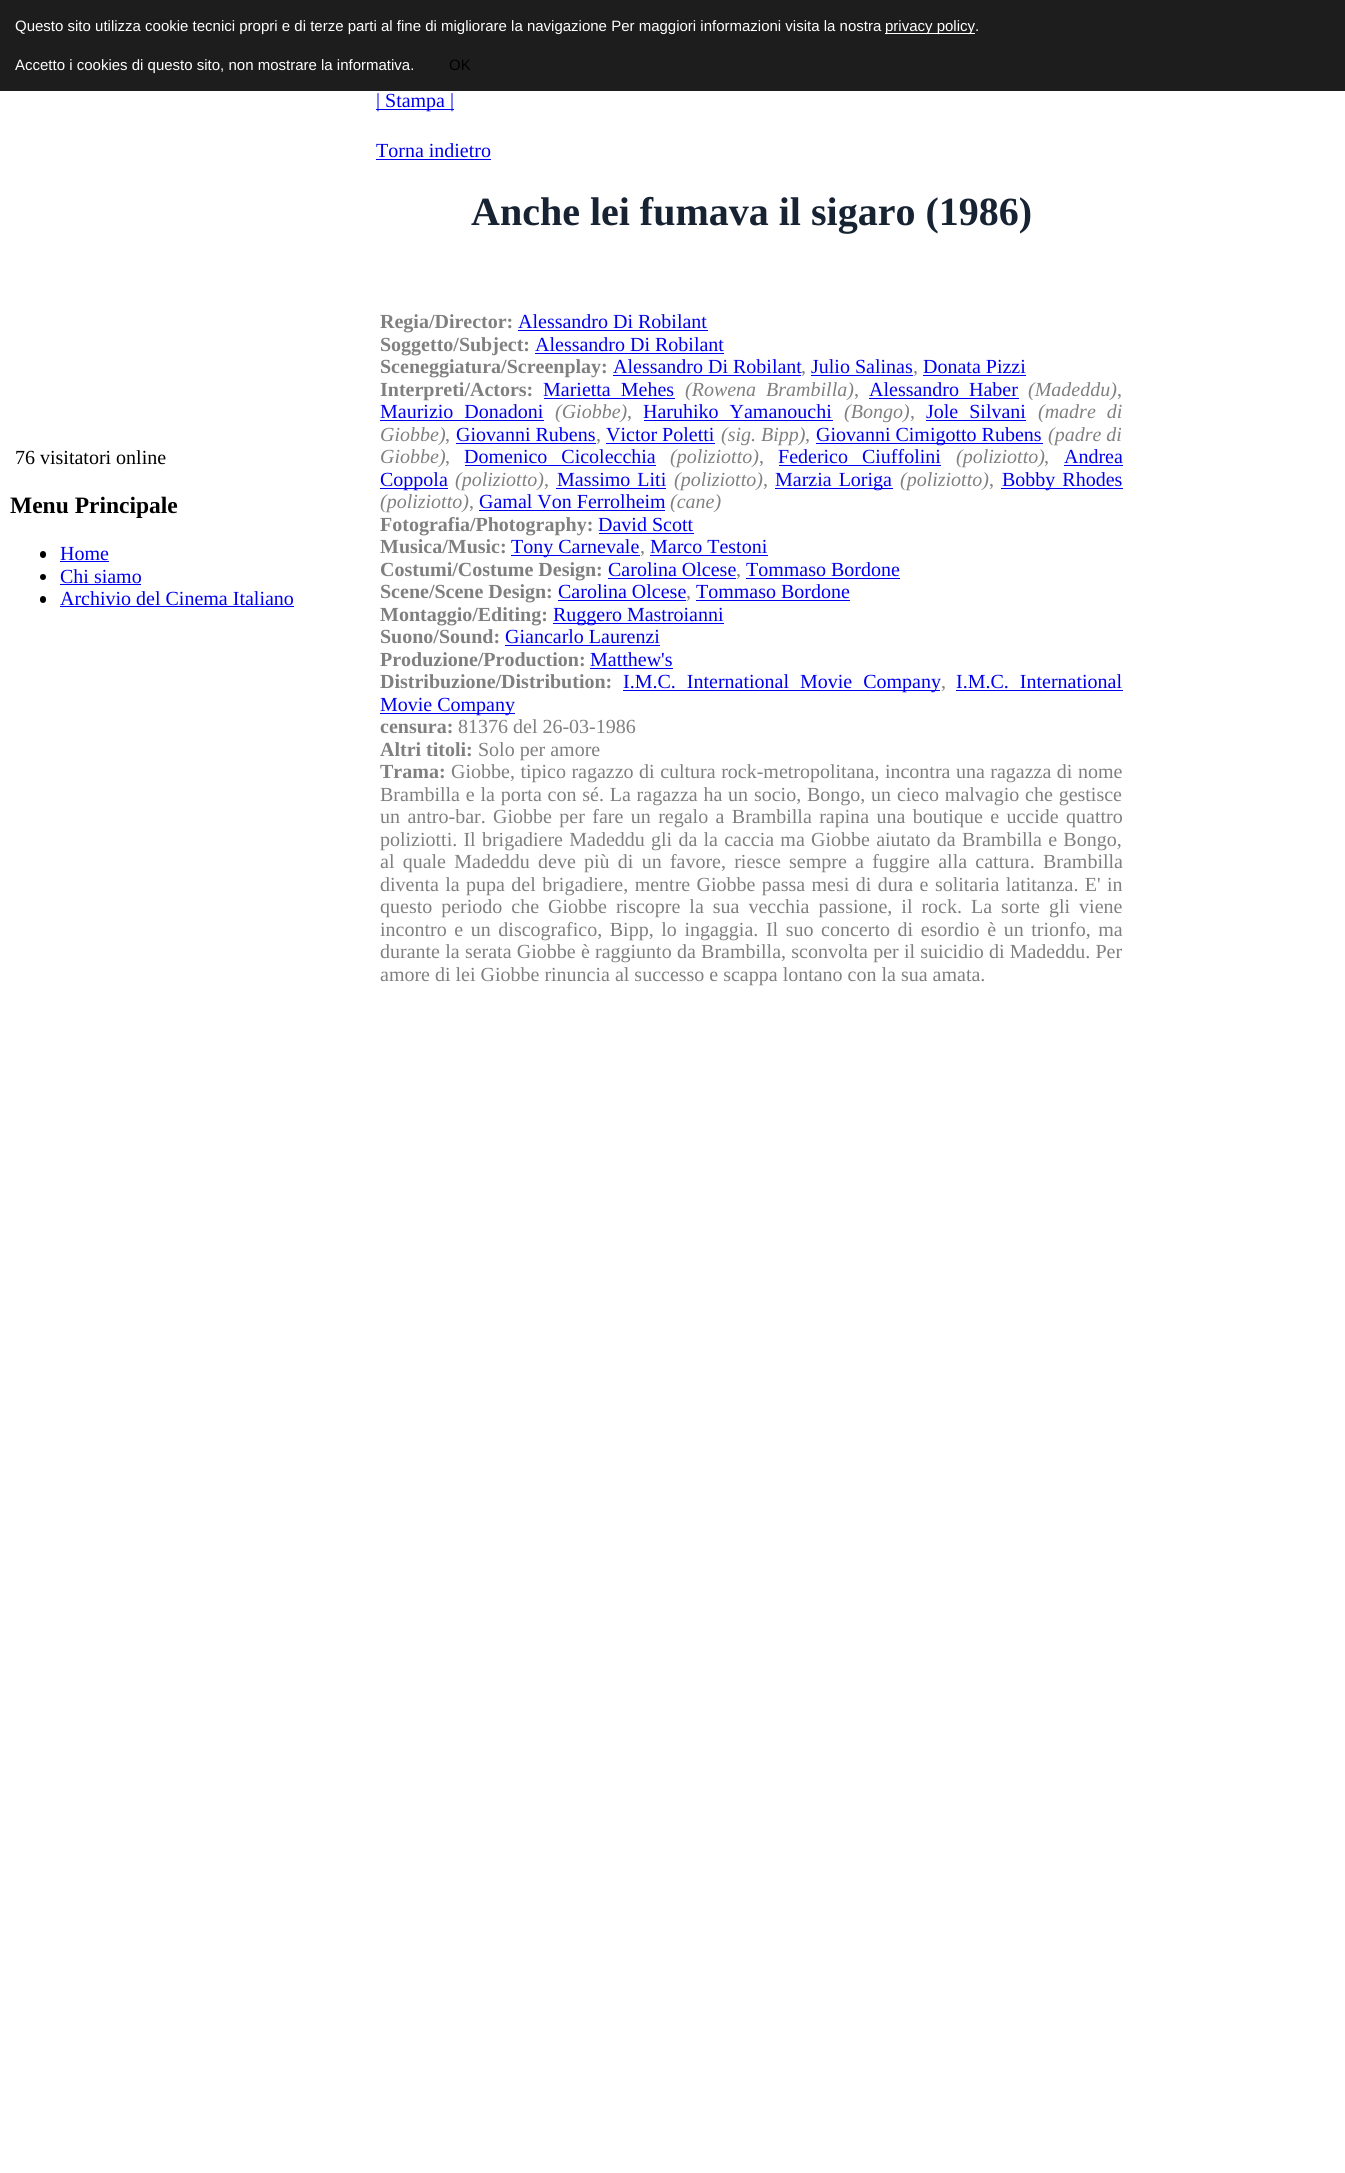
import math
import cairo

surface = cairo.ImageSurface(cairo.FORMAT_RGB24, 1345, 2173)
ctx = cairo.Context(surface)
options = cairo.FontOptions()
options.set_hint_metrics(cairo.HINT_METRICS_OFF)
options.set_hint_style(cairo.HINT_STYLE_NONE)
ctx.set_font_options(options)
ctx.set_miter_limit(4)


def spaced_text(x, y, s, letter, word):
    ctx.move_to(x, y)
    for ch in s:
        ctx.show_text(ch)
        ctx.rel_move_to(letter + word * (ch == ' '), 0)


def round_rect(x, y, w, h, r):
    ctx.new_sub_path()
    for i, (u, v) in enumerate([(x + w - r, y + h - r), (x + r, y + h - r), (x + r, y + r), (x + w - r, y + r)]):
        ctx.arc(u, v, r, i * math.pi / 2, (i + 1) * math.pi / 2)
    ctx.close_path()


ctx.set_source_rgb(1, 1, 1)
ctx.paint()
ctx.set_source_rgb(0.114, 0.114, 0.114)
ctx.rectangle(0, 0, 1345, 91)
ctx.fill()
ctx.select_font_face("Liberation Sans")
ctx.set_font_size(15)
ctx.set_source_rgb(1, 1, 1)
ctx.move_to(15, 31)
ctx.show_text("Questo sito utilizza cookie tecnici propri e di terze parti al fine di migliorare la navigazione Per maggiori informazioni visita la nostra")
ctx.rectangle(885, 33, 90, 1)
ctx.fill()
ctx.move_to(885, 31)
ctx.show_text("privacy policy.")
ctx.move_to(15, 70)
ctx.show_text("Accetto i cookies di questo sito, non mostrare la informativa.")
ctx.set_source_rgb(0, 0, 0)
ctx.move_to(449, 70)
ctx.show_text("OK")
ctx.select_font_face("Liberation Serif")
ctx.set_font_size(20)
ctx.move_to(15, 464)
ctx.show_text("76 visitatori online")
ctx.select_font_face("Liberation Serif", cairo.FONT_SLANT_NORMAL, cairo.FONT_WEIGHT_BOLD)
ctx.set_font_size(23.5)
ctx.move_to(10, 513)
ctx.show_text("Menu Principale")
round_rect(40, 551, 6, 7, 3)
ctx.fill()
ctx.select_font_face("Liberation Serif")
ctx.set_font_size(20)
ctx.set_source_rgb(0, 0, 0.933)
ctx.move_to(60, 560)
ctx.show_text("Home")
ctx.rectangle(60, 561, 49, 1)
ctx.fill()
ctx.set_source_rgb(0, 0, 0)
ctx.arc(43, 577, 3, 0, 2 * math.pi)
ctx.fill()
ctx.set_source_rgb(0, 0, 0.933)
ctx.move_to(60, 583)
ctx.show_text("Chi siamo")
ctx.rectangle(60, 584, 81, 1)
ctx.fill()
ctx.set_source_rgb(0, 0, 0)
round_rect(40, 596, 6, 7, 3)
ctx.fill()
ctx.set_source_rgb(0, 0, 0.933)
ctx.move_to(60, 605)
ctx.show_text("Archivio del Cinema Italiano")
ctx.rectangle(60, 606, 234, 1)
ctx.fill()
ctx.rectangle(376, 109, 78, 1)
ctx.fill()
ctx.move_to(376, 107)
ctx.show_text("| Stampa |")
ctx.move_to(376, 157)
ctx.show_text("Torna indietro")
ctx.rectangle(376, 159, 115, 1)
ctx.fill()
ctx.select_font_face("Liberation Serif", cairo.FONT_SLANT_NORMAL, cairo.FONT_WEIGHT_BOLD)
ctx.set_font_size(40)
ctx.set_source_rgb(0.09, 0.137, 0.196)
ctx.move_to(471, 225)
ctx.show_text("Anche lei fumava il sigaro (1986)")
ctx.set_font_size(20)
ctx.set_source_rgb(0.502, 0.502, 0.502)
ctx.move_to(380, 328)
ctx.show_text("Regia/Director:")
ctx.select_font_face("Liberation Serif")
ctx.set_source_rgb(0, 0, 0.933)
ctx.move_to(518, 328)
ctx.show_text("Alessandro Di Robilant")
ctx.rectangle(518, 330, 190, 1)
ctx.fill()
ctx.select_font_face("Liberation Serif", cairo.FONT_SLANT_NORMAL, cairo.FONT_WEIGHT_BOLD)
ctx.set_source_rgb(0.502, 0.502, 0.502)
ctx.move_to(380, 351)
ctx.show_text("Soggetto/Subject:")
ctx.select_font_face("Liberation Serif")
ctx.set_source_rgb(0, 0, 0.933)
ctx.move_to(535, 351)
ctx.show_text("Alessandro Di Robilant")
ctx.rectangle(535, 353, 189, 1)
ctx.fill()
ctx.select_font_face("Liberation Serif", cairo.FONT_SLANT_NORMAL, cairo.FONT_WEIGHT_BOLD)
ctx.set_source_rgb(0.502, 0.502, 0.502)
ctx.move_to(380, 373)
ctx.show_text("Sceneggiatura/Screenplay:")
ctx.select_font_face("Liberation Serif")
ctx.set_source_rgb(0, 0, 0.933)
ctx.move_to(613, 373)
ctx.show_text("Alessandro Di Robilant")
ctx.set_source_rgb(0.502, 0.502, 0.502)
ctx.move_to(801, 373)
ctx.show_text(",")
ctx.set_source_rgb(0, 0, 0.933)
ctx.rectangle(613, 375, 188, 1)
ctx.fill()
ctx.move_to(811, 373)
ctx.show_text("Julio Salinas")
ctx.set_source_rgb(0.502, 0.502, 0.502)
ctx.move_to(913, 373)
ctx.show_text(",")
ctx.set_source_rgb(0, 0, 0.933)
ctx.rectangle(811, 375, 102, 1)
ctx.fill()
ctx.rectangle(923, 375, 103, 1)
ctx.fill()
ctx.move_to(923, 373)
ctx.show_text("Donata Pizzi")
ctx.select_font_face("Liberation Serif", cairo.FONT_SLANT_NORMAL, cairo.FONT_WEIGHT_BOLD)
ctx.set_source_rgb(0.502, 0.502, 0.502)
ctx.move_to(380, 396)
ctx.show_text("Interpreti/Actors:")
ctx.select_font_face("Liberation Serif")
ctx.set_source_rgb(0, 0, 0.933)
spaced_text(543, 396, "Marietta Mehes", 0, 5)
ctx.rectangle(544, 398, 131, 1)
ctx.fill()
ctx.select_font_face("Liberation Serif", cairo.FONT_SLANT_ITALIC)
ctx.set_source_rgb(0.502, 0.502, 0.502)
spaced_text(685, 396, "(Rowena Brambilla)", 0, 5)
ctx.select_font_face("Liberation Serif")
ctx.move_to(854, 396)
ctx.show_text(",")
ctx.set_source_rgb(0, 0, 0.933)
ctx.rectangle(869, 398, 150, 1)
ctx.fill()
spaced_text(869, 396, "Alessandro Haber", 0, 5)
ctx.select_font_face("Liberation Serif", cairo.FONT_SLANT_ITALIC)
ctx.set_source_rgb(0.502, 0.502, 0.502)
ctx.move_to(1028, 396)
ctx.show_text("(Madeddu)")
ctx.select_font_face("Liberation Serif")
ctx.move_to(1117, 396)
ctx.show_text(",")
ctx.set_source_rgb(0, 0, 0.933)
spaced_text(380, 418, "Maurizio Donadoni", 0, 6)
ctx.rectangle(380, 420, 164, 1)
ctx.fill()
ctx.select_font_face("Liberation Serif", cairo.FONT_SLANT_ITALIC)
ctx.set_source_rgb(0.502, 0.502, 0.502)
ctx.move_to(555, 418)
ctx.show_text("(Giobbe)")
ctx.select_font_face("Liberation Serif")
ctx.move_to(627, 418)
ctx.show_text(",")
ctx.set_source_rgb(0, 0, 0.933)
ctx.rectangle(644, 420, 189, 1)
ctx.fill()
spaced_text(643, 418, "Haruhiko Yamanouchi", 0, 6)
ctx.select_font_face("Liberation Serif", cairo.FONT_SLANT_ITALIC)
ctx.set_source_rgb(0.502, 0.502, 0.502)
ctx.move_to(844, 418)
ctx.show_text("(Bongo)")
ctx.select_font_face("Liberation Serif")
ctx.move_to(910, 418)
ctx.show_text(",")
ctx.set_source_rgb(0, 0, 0.933)
ctx.rectangle(926, 420, 100, 1)
ctx.fill()
spaced_text(926, 418, "Jole Silvani", 0, 6)
ctx.select_font_face("Liberation Serif", cairo.FONT_SLANT_ITALIC)
ctx.set_source_rgb(0.502, 0.502, 0.502)
spaced_text(1038, 418, "(madre di", 0, 6)
ctx.move_to(380, 441)
ctx.show_text("Giobbe)")
ctx.select_font_face("Liberation Serif")
ctx.move_to(445, 441)
ctx.show_text(",")
ctx.set_source_rgb(0, 0, 0.933)
ctx.move_to(456, 441)
ctx.show_text("Giovanni Rubens")
ctx.set_source_rgb(0.502, 0.502, 0.502)
ctx.move_to(596, 441)
ctx.show_text(",")
ctx.set_source_rgb(0, 0, 0.933)
ctx.rectangle(456, 443, 140, 1)
ctx.fill()
ctx.rectangle(606, 443, 109, 1)
ctx.fill()
ctx.move_to(606, 441)
ctx.show_text("Victor Poletti")
ctx.select_font_face("Liberation Serif", cairo.FONT_SLANT_ITALIC)
ctx.set_source_rgb(0.502, 0.502, 0.502)
ctx.move_to(721, 441)
ctx.show_text("(sig. Bipp)")
ctx.select_font_face("Liberation Serif")
ctx.move_to(805, 441)
ctx.show_text(",")
ctx.set_source_rgb(0, 0, 0.933)
ctx.rectangle(816, 443, 227, 1)
ctx.fill()
ctx.move_to(816, 441)
ctx.show_text("Giovanni Cimigotto Rubens")
ctx.select_font_face("Liberation Serif", cairo.FONT_SLANT_ITALIC)
ctx.set_source_rgb(0.502, 0.502, 0.502)
ctx.move_to(1048, 441)
ctx.show_text("(padre di")
ctx.move_to(380, 463)
ctx.show_text("Giobbe)")
ctx.select_font_face("Liberation Serif")
ctx.move_to(445, 463)
ctx.show_text(",")
ctx.set_source_rgb(0, 0, 0.933)
spaced_text(464, 463, "Domenico Cicolecchia", 0, 9)
ctx.rectangle(465, 465, 191, 1)
ctx.fill()
ctx.select_font_face("Liberation Serif", cairo.FONT_SLANT_ITALIC)
ctx.set_source_rgb(0.502, 0.502, 0.502)
ctx.move_to(670, 463)
ctx.show_text("(poliziotto)")
ctx.select_font_face("Liberation Serif")
ctx.move_to(759, 463)
ctx.show_text(",")
ctx.set_source_rgb(0, 0, 0.933)
ctx.rectangle(779, 465, 162, 1)
ctx.fill()
spaced_text(778, 463, "Federico Ciuffolini", 0, 9)
ctx.select_font_face("Liberation Serif", cairo.FONT_SLANT_ITALIC)
ctx.set_source_rgb(0.502, 0.502, 0.502)
ctx.move_to(956, 463)
ctx.show_text("(poliziotto)")
ctx.select_font_face("Liberation Serif")
ctx.move_to(1044, 463)
ctx.show_text(",")
ctx.set_source_rgb(0, 0, 0.933)
ctx.move_to(1064, 463)
ctx.show_text("Andrea")
ctx.rectangle(1064, 465, 59, 1)
ctx.fill()
ctx.rectangle(380, 488, 68, 1)
ctx.fill()
ctx.move_to(380, 486)
ctx.show_text("Coppola")
ctx.select_font_face("Liberation Serif", cairo.FONT_SLANT_ITALIC)
ctx.set_source_rgb(0.502, 0.502, 0.502)
ctx.move_to(455, 486)
ctx.show_text("(poliziotto)")
ctx.select_font_face("Liberation Serif")
ctx.move_to(544, 486)
ctx.show_text(",")
ctx.set_source_rgb(0, 0, 0.933)
ctx.rectangle(556, 488, 110, 1)
ctx.fill()
spaced_text(557, 486, "Massimo Liti", 0, 2)
ctx.select_font_face("Liberation Serif", cairo.FONT_SLANT_ITALIC)
ctx.set_source_rgb(0.502, 0.502, 0.502)
ctx.move_to(674, 486)
ctx.show_text("(poliziotto)")
ctx.select_font_face("Liberation Serif")
ctx.move_to(763, 486)
ctx.show_text(",")
ctx.set_source_rgb(0, 0, 0.933)
ctx.rectangle(775, 488, 118, 1)
ctx.fill()
spaced_text(775, 486, "Marzia Loriga", 0, 2)
ctx.select_font_face("Liberation Serif", cairo.FONT_SLANT_ITALIC)
ctx.set_source_rgb(0.502, 0.502, 0.502)
ctx.move_to(900, 486)
ctx.show_text("(poliziotto)")
ctx.select_font_face("Liberation Serif")
ctx.move_to(989, 486)
ctx.show_text(",")
ctx.set_source_rgb(0, 0, 0.933)
ctx.rectangle(1001, 488, 122, 1)
ctx.fill()
spaced_text(1002, 486, "Bobby Rhodes", 0, 2)
ctx.select_font_face("Liberation Serif", cairo.FONT_SLANT_ITALIC)
ctx.set_source_rgb(0.502, 0.502, 0.502)
ctx.move_to(380, 508)
ctx.show_text("(poliziotto)")
ctx.select_font_face("Liberation Serif")
ctx.move_to(469, 508)
ctx.show_text(",")
ctx.set_source_rgb(0, 0, 0.933)
ctx.rectangle(479, 510, 186, 1)
ctx.fill()
ctx.move_to(479, 508)
ctx.show_text("Gamal Von Ferrolheim")
ctx.select_font_face("Liberation Serif", cairo.FONT_SLANT_ITALIC)
ctx.set_source_rgb(0.502, 0.502, 0.502)
ctx.move_to(670, 508)
ctx.show_text("(cane)")
ctx.select_font_face("Liberation Serif", cairo.FONT_SLANT_NORMAL, cairo.FONT_WEIGHT_BOLD)
ctx.move_to(380, 531)
ctx.show_text("Fotografia/Photography:")
ctx.select_font_face("Liberation Serif")
ctx.set_source_rgb(0, 0, 0.933)
ctx.move_to(598, 531)
ctx.show_text("David Scott")
ctx.rectangle(599, 533, 95, 1)
ctx.fill()
ctx.select_font_face("Liberation Serif", cairo.FONT_SLANT_NORMAL, cairo.FONT_WEIGHT_BOLD)
ctx.set_source_rgb(0.502, 0.502, 0.502)
ctx.move_to(380, 553)
ctx.show_text("Musica/Music:")
ctx.set_source_rgb(0, 0, 0.933)
ctx.rectangle(511, 555, 129, 1)
ctx.fill()
ctx.select_font_face("Liberation Serif")
ctx.move_to(511, 553)
ctx.show_text("Tony Carnevale")
ctx.set_source_rgb(0.502, 0.502, 0.502)
ctx.move_to(640, 553)
ctx.show_text(",")
ctx.set_source_rgb(0, 0, 0.933)
ctx.rectangle(650, 555, 118, 1)
ctx.fill()
ctx.move_to(650, 553)
ctx.show_text("Marco Testoni")
ctx.select_font_face("Liberation Serif", cairo.FONT_SLANT_NORMAL, cairo.FONT_WEIGHT_BOLD)
ctx.set_source_rgb(0.502, 0.502, 0.502)
ctx.move_to(380, 576)
ctx.show_text("Costumi/Costume Design:")
ctx.select_font_face("Liberation Serif")
ctx.set_source_rgb(0, 0, 0.933)
ctx.move_to(608, 576)
ctx.show_text("Carolina Olcese")
ctx.set_source_rgb(0.502, 0.502, 0.502)
ctx.move_to(736, 576)
ctx.show_text(",")
ctx.set_source_rgb(0, 0, 0.933)
ctx.rectangle(608, 578, 128, 1)
ctx.fill()
ctx.rectangle(746, 578, 154, 1)
ctx.fill()
ctx.move_to(746, 576)
ctx.show_text("Tommaso Bordone")
ctx.select_font_face("Liberation Serif", cairo.FONT_SLANT_NORMAL, cairo.FONT_WEIGHT_BOLD)
ctx.set_source_rgb(0.502, 0.502, 0.502)
ctx.move_to(380, 598)
ctx.show_text("Scene/Scene Design:")
ctx.select_font_face("Liberation Serif")
ctx.set_source_rgb(0, 0, 0.933)
ctx.move_to(558, 598)
ctx.show_text("Carolina Olcese")
ctx.set_source_rgb(0.502, 0.502, 0.502)
ctx.move_to(686, 598)
ctx.show_text(",")
ctx.set_source_rgb(0, 0, 0.933)
ctx.rectangle(558, 600, 128, 1)
ctx.fill()
ctx.rectangle(696, 600, 154, 1)
ctx.fill()
ctx.move_to(696, 598)
ctx.show_text("Tommaso Bordone")
ctx.select_font_face("Liberation Serif", cairo.FONT_SLANT_NORMAL, cairo.FONT_WEIGHT_BOLD)
ctx.set_source_rgb(0.502, 0.502, 0.502)
ctx.move_to(380, 621)
ctx.show_text("Montaggio/Editing:")
ctx.set_source_rgb(0, 0, 0.933)
ctx.rectangle(553, 623, 171, 1)
ctx.fill()
ctx.select_font_face("Liberation Serif")
ctx.move_to(553, 621)
ctx.show_text("Ruggero Mastroianni")
ctx.select_font_face("Liberation Serif", cairo.FONT_SLANT_NORMAL, cairo.FONT_WEIGHT_BOLD)
ctx.set_source_rgb(0.502, 0.502, 0.502)
ctx.move_to(380, 643)
ctx.show_text("Suono/Sound:")
ctx.select_font_face("Liberation Serif")
ctx.set_source_rgb(0, 0, 0.933)
ctx.move_to(505, 643)
ctx.show_text("Giancarlo Laurenzi")
ctx.rectangle(505, 645, 155, 1)
ctx.fill()
ctx.select_font_face("Liberation Serif", cairo.FONT_SLANT_NORMAL, cairo.FONT_WEIGHT_BOLD)
ctx.set_source_rgb(0.502, 0.502, 0.502)
ctx.move_to(380, 666)
ctx.show_text("Produzione/Production:")
ctx.select_font_face("Liberation Serif")
ctx.set_source_rgb(0, 0, 0.933)
ctx.move_to(590, 666)
ctx.show_text("Matthew's")
ctx.rectangle(590, 668, 83, 1)
ctx.fill()
ctx.select_font_face("Liberation Serif", cairo.FONT_SLANT_NORMAL, cairo.FONT_WEIGHT_BOLD)
ctx.set_source_rgb(0.502, 0.502, 0.502)
ctx.move_to(380, 688)
ctx.show_text("Distribuzione/Distribution:")
ctx.set_source_rgb(0, 0, 0.933)
ctx.rectangle(623, 690, 317, 1)
ctx.fill()
ctx.select_font_face("Liberation Serif")
spaced_text(623, 688, "I.M.C. International Movie Company", 0, 6)
ctx.set_source_rgb(0.502, 0.502, 0.502)
ctx.move_to(941, 688)
ctx.show_text(",")
ctx.set_source_rgb(0, 0, 0.933)
ctx.rectangle(956, 690, 167, 1)
ctx.fill()
spaced_text(956, 688, "I.M.C. International", 0, 6)
ctx.rectangle(380, 713, 135, 1)
ctx.fill()
ctx.move_to(380, 711)
ctx.show_text("Movie Company")
ctx.select_font_face("Liberation Serif", cairo.FONT_SLANT_NORMAL, cairo.FONT_WEIGHT_BOLD)
ctx.set_source_rgb(0.502, 0.502, 0.502)
ctx.move_to(380, 733)
ctx.show_text("censura:")
ctx.select_font_face("Liberation Serif")
ctx.move_to(458, 733)
ctx.show_text("81376 del 26-03-1986")
ctx.select_font_face("Liberation Serif", cairo.FONT_SLANT_NORMAL, cairo.FONT_WEIGHT_BOLD)
ctx.move_to(380, 756)
ctx.show_text("Altri titoli:")
ctx.select_font_face("Liberation Serif")
ctx.move_to(478, 756)
ctx.show_text("Solo per amore")
ctx.select_font_face("Liberation Serif", cairo.FONT_SLANT_NORMAL, cairo.FONT_WEIGHT_BOLD)
ctx.move_to(380, 778)
ctx.show_text("Trama:")
ctx.select_font_face("Liberation Serif")
spaced_text(451, 778, "Giobbe, tipico ragazzo di cultura rock-metropolitana, incontra una ragazza di nome", 0, 0.5)
spaced_text(380, 801, "Brambilla e la porta con sé. La ragazza ha un socio, Bongo, un cieco malvagio che gestisce", 0, 0.8)
spaced_text(380, 823, "un antro-bar. Giobbe per fare un regalo a Brambilla rapina una boutique e uccide quattro", 0, 2.4)
spaced_text(380, 846, "poliziotti. Il brigadiere Madeddu gli da la caccia ma Giobbe aiutato da Brambilla e Bongo,", 0, 1.25)
spaced_text(380, 868, "al quale Madeddu deve più di un favore, riesce sempre a fuggire alla cattura. Brambilla", 0, 3.25)
spaced_text(380, 891, "diventa la pupa del brigadiere, mentre Giobbe passa mesi di dura e solitaria latitanza. E' in", 0, 1.4)
spaced_text(380, 913, "questo periodo che Giobbe riscopre la sua vecchia passione, il rock. La sorte gli viene", 0, 4)
spaced_text(380, 936, "incontro e un discografico, Bipp, lo ingaggia. Il suo concerto di esordio è un trionfo, ma", 0, 2.6)
spaced_text(380, 958, "durante la serata Giobbe è raggiunto da Brambilla, sconvolta per il suicidio di Madeddu. Per", 0, 0.25)
ctx.move_to(380, 981)
ctx.show_text("amore di lei Giobbe rinuncia al successo e scappa lontano con la sua amata.")
surface.write_to_png("page.png")
